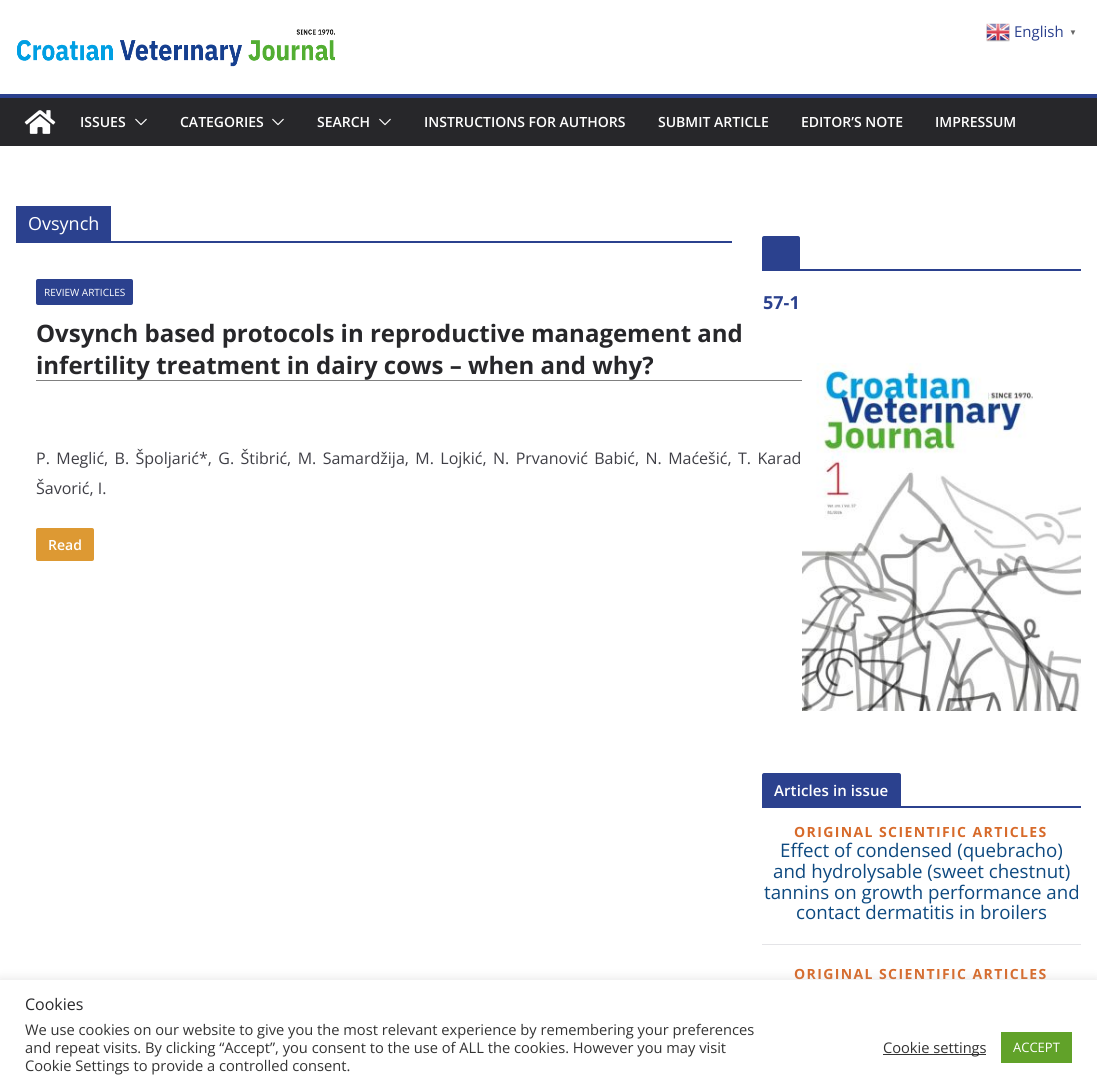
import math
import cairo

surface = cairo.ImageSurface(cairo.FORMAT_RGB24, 1097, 1088)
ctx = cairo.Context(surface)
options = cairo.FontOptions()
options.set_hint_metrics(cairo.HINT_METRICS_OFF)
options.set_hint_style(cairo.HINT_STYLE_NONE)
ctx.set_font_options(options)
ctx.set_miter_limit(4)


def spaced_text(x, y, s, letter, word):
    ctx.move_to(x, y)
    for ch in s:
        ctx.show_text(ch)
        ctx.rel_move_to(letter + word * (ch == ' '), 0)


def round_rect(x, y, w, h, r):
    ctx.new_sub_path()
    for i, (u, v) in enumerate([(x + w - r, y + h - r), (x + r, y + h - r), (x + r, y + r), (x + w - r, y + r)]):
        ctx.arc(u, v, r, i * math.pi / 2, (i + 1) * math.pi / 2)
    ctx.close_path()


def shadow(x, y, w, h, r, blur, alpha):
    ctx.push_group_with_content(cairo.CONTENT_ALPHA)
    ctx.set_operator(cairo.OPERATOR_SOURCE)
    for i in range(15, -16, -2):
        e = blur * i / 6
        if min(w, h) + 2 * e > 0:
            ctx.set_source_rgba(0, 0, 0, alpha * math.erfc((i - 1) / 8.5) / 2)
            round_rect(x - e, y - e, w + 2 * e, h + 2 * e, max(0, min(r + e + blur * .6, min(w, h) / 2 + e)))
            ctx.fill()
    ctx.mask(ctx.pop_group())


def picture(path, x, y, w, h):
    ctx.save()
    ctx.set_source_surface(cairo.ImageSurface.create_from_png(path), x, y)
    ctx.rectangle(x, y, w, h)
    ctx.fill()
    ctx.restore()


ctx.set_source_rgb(1, 1, 1)
ctx.paint()
picture("img1.png", 986, 23, 24, 19)
ctx.select_font_face("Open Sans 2")
ctx.set_font_size(15)
ctx.set_source_rgb(0.169, 0.255, 0.557)
ctx.move_to(1014, 37)
ctx.show_text("English")
ctx.select_font_face("Liberation Serif", cairo.FONT_SLANT_NORMAL, cairo.FONT_WEIGHT_BOLD)
ctx.set_font_size(8)
ctx.set_source_rgb(0.4, 0.4, 0.4)
ctx.move_to(1069, 35)
ctx.show_text("▼")
picture("img2.png", 17, 29, 318, 38)
ctx.set_source_rgb(0.153, 0.153, 0.165)
ctx.rectangle(0, 98, 1097, 48)
ctx.fill()
ctx.set_source_rgb(0.169, 0.255, 0.557)
ctx.rectangle(0, 94, 1097, 4)
ctx.fill()
picture("img3.png", 24, 110, 32, 24)
ctx.select_font_face("Open Sans SemiBold")
ctx.set_font_size(14)
ctx.set_source_rgb(1, 1, 1)
ctx.move_to(80, 127)
ctx.show_text("ISSUES")
picture("img4.png", 135, 118, 12, 8)
ctx.move_to(180, 127)
ctx.show_text("CATEGORIES")
picture("img4.png", 272, 118, 12, 8)
ctx.move_to(317, 127)
ctx.show_text("SEARCH")
picture("img4.png", 379, 118, 12, 8)
ctx.move_to(424, 127)
ctx.show_text("INSTRUCTIONS FOR AUTHORS")
ctx.move_to(658, 127)
ctx.show_text("SUBMIT ARTICLE")
ctx.move_to(801, 127)
ctx.show_text("EDITOR’S NOTE")
ctx.move_to(935, 127)
ctx.show_text("IMPRESSUM")
ctx.set_source_rgb(0.169, 0.255, 0.557)
ctx.rectangle(16, 241, 716, 2)
ctx.fill()
ctx.rectangle(16, 206, 95, 35)
ctx.fill()
ctx.select_font_face("Open Sans")
ctx.set_font_size(18)
ctx.set_source_rgb(1, 1, 1)
ctx.move_to(28, 230)
ctx.show_text("Ovsynch")
ctx.set_source_rgb(0.169, 0.255, 0.557)
round_rect(36, 279, 97, 26, 2)
ctx.fill()
ctx.select_font_face("Open Sans 2")
ctx.set_font_size(10)
ctx.set_source_rgb(1, 1, 1)
ctx.move_to(44, 296)
ctx.show_text("REVIEW ARTICLES")
ctx.set_source_rgb(0.502, 0.502, 0.502)
ctx.rectangle(36, 380, 766, 1)
ctx.fill()
ctx.select_font_face("Open Sans", cairo.FONT_SLANT_NORMAL, cairo.FONT_WEIGHT_BOLD)
ctx.set_font_size(24)
ctx.set_source_rgb(0.153, 0.153, 0.165)
ctx.move_to(36, 342)
ctx.show_text("Ovsynch based protocols in reproductive management and")
ctx.move_to(36, 374)
ctx.show_text("infertility treatment in dairy cows – when and why?")
ctx.select_font_face("Open Sans 2")
ctx.set_font_size(16)
ctx.set_source_rgb(0.247, 0.247, 0.275)
spaced_text(36, 464, "P. Meglić, B. Špoljarić*, G. Štibrić, M. Samardžija, M. Lojkić, N. Prvanović Babić, N. Maćešić, T. Karad", 0, 2.25)
ctx.move_to(36, 494)
ctx.show_text("Šavorić, I.")
ctx.set_source_rgb(0.867, 0.6, 0.2)
round_rect(36, 528, 58, 33, 2)
ctx.fill()
ctx.select_font_face("Open Sans SemiBold")
ctx.set_font_size(14)
ctx.set_source_rgb(1, 1, 1)
ctx.move_to(48, 550)
ctx.show_text("Read")
ctx.set_source_rgb(0.169, 0.255, 0.557)
ctx.rectangle(762, 269, 319, 2)
ctx.fill()
ctx.new_path()
ctx.move_to(764, 236)
ctx.line_to(798, 236)
ctx.curve_to(799, 236, 800, 237, 800, 238)
ctx.line_to(800, 269)
ctx.line_to(762, 269)
ctx.line_to(762, 238)
ctx.curve_to(762, 237, 763, 236, 764, 236)
ctx.close_path()
ctx.fill()
ctx.select_font_face("Open Sans", cairo.FONT_SLANT_NORMAL, cairo.FONT_WEIGHT_BOLD)
ctx.set_font_size(18)
ctx.move_to(763, 309)
ctx.show_text("57-1")
picture("img5.png", 802, 363, 279, 348)
ctx.rectangle(762, 806, 319, 2)
ctx.fill()
ctx.new_path()
ctx.move_to(764, 773)
ctx.line_to(899, 773)
ctx.curve_to(900, 773, 901, 774, 901, 775)
ctx.line_to(901, 806)
ctx.line_to(762, 806)
ctx.line_to(762, 775)
ctx.curve_to(762, 774, 763, 773, 764, 773)
ctx.close_path()
ctx.fill()
ctx.select_font_face("Open Sans SemiBold")
ctx.set_font_size(15)
ctx.set_source_rgb(1, 1, 1)
spaced_text(774, 796, "Articles in issue", 0.1, 0)
ctx.select_font_face("Open Sans", cairo.FONT_SLANT_NORMAL, cairo.FONT_WEIGHT_BOLD)
ctx.set_font_size(14)
ctx.set_source_rgb(0.843, 0.416, 0.165)
spaced_text(794, 837, "ORIGINAL SCIENTIFIC ARTICLES", 1.4, 0)
ctx.select_font_face("Open Sans 2")
ctx.set_font_size(18.7)
ctx.set_source_rgb(0.051, 0.286, 0.502)
ctx.move_to(780, 857)
ctx.show_text("Effect of condensed (quebracho)")
ctx.move_to(773, 878)
ctx.show_text("and hydrolysable (sweet chestnut)")
ctx.move_to(764, 899)
ctx.show_text("tannins on growth performance and")
ctx.move_to(796, 919)
ctx.show_text("contact dermatitis in broilers")
ctx.set_source_rgb(0.894, 0.894, 0.906)
ctx.rectangle(762, 944, 319, 1)
ctx.fill()
ctx.select_font_face("Open Sans", cairo.FONT_SLANT_NORMAL, cairo.FONT_WEIGHT_BOLD)
ctx.set_font_size(14)
ctx.set_source_rgb(0.843, 0.416, 0.165)
spaced_text(794, 979, "ORIGINAL SCIENTIFIC ARTICLES", 1.4, 0)
ctx.set_source_rgb(0.675, 0.671, 0.671)
shadow(0, 979, 1097, 108, 0, 5, 0.3)
ctx.set_source_rgb(1, 1, 1)
ctx.rectangle(0, 980, 1097, 108)
ctx.fill()
ctx.select_font_face("Open Sans")
ctx.set_font_size(16)
ctx.set_source_rgb(0.153, 0.153, 0.165)
ctx.move_to(25, 1010)
ctx.show_text("Cookies")
ctx.select_font_face("Open Sans 2")
ctx.set_font_size(14.65)
ctx.set_source_rgb(0.2, 0.2, 0.2)
ctx.move_to(25, 1035)
ctx.show_text("We use cookies on our website to give you the most relevant experience by remembering your preferences")
ctx.move_to(25, 1053)
ctx.show_text("and repeat visits. By clicking “Accept”, you consent to the use of ALL the cookies. However you may visit")
ctx.move_to(25, 1071)
ctx.show_text("Cookie Settings to provide a controlled consent.")
ctx.rectangle(883, 1054, 103, 1)
ctx.fill()
ctx.move_to(883, 1053)
ctx.show_text("Cookie settings")
ctx.set_source_rgb(0.38, 0.635, 0.161)
ctx.rectangle(1001, 1032, 71, 31)
ctx.fill()
ctx.set_font_size(13)
ctx.set_source_rgb(1, 1, 1)
ctx.move_to(1013, 1052)
ctx.show_text("ACCEPT")
surface.write_to_png("page.png")
